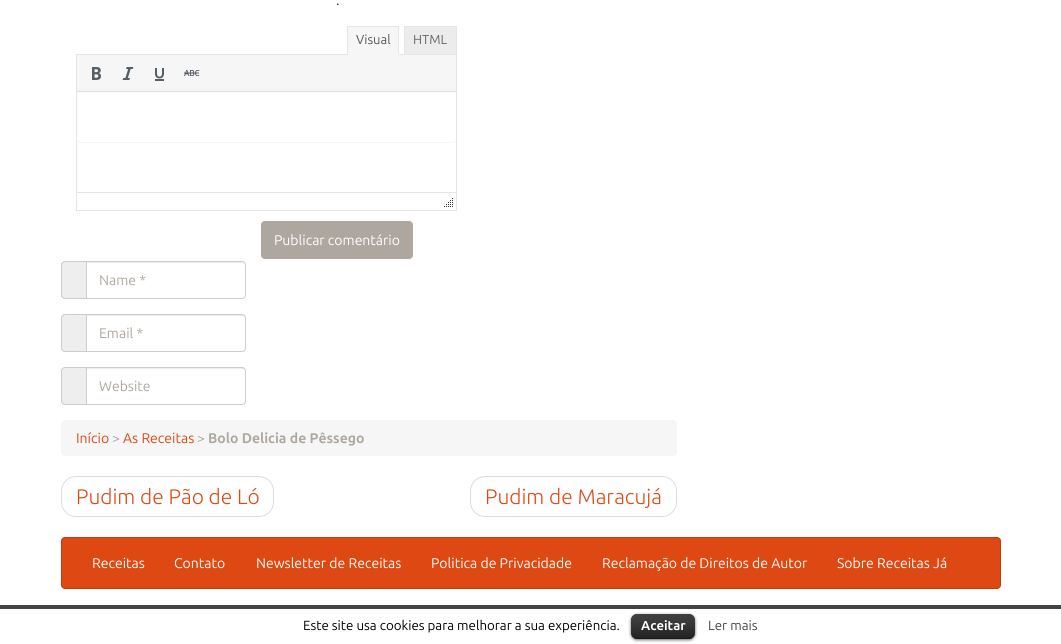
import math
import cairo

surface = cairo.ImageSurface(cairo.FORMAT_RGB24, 1061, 644)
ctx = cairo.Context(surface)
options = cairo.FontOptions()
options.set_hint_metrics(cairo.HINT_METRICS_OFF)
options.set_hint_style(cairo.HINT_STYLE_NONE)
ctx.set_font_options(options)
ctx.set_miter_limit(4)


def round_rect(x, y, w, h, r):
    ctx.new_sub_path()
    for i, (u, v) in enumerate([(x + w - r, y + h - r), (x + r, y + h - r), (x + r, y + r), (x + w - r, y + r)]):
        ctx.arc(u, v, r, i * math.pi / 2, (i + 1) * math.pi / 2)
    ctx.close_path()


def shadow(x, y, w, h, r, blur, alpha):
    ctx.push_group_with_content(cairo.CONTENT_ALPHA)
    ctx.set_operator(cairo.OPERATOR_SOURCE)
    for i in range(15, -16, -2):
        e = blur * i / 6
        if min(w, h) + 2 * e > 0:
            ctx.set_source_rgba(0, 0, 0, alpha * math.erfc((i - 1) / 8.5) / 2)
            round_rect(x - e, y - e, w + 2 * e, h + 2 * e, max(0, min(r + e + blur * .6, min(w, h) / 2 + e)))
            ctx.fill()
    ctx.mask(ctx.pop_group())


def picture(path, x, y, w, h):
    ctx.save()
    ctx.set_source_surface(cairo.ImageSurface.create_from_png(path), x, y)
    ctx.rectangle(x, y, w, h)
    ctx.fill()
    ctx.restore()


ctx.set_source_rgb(1, 1, 1)
ctx.paint()
ctx.select_font_face("Ubuntu")
ctx.set_font_size(14)
ctx.set_source_rgb(0.2, 0.2, 0.2)
ctx.move_to(336, 5)
ctx.show_text(".")
ctx.set_source_rgb(0.961, 0.961, 0.961)
ctx.rectangle(348, 27, 50, 27)
ctx.fill()
ctx.set_source_rgb(0.898, 0.898, 0.898)
ctx.rectangle(347, 26, 52, 1)
ctx.fill()
ctx.rectangle(76.5, 54.5, 380, 156)
ctx.set_line_width(1)
ctx.stroke()
ctx.rectangle(398, 26, 1, 29)
ctx.fill()
ctx.set_source_rgb(0.961, 0.961, 0.961)
ctx.rectangle(347, 54, 52, 1)
ctx.fill()
ctx.set_source_rgb(0.898, 0.898, 0.898)
ctx.rectangle(347, 26, 1, 29)
ctx.fill()
ctx.set_font_size(13)
ctx.set_source_rgb(0.333, 0.333, 0.333)
ctx.move_to(356, 44)
ctx.show_text("Visual")
ctx.set_source_rgb(0.922, 0.922, 0.922)
ctx.rectangle(404.5, 26.5, 52, 28)
ctx.fill_preserve()
ctx.set_source_rgb(0.898, 0.898, 0.898)
ctx.stroke()
ctx.set_source_rgb(0.4, 0.4, 0.4)
ctx.move_to(413, 44)
ctx.show_text("HTML")
ctx.set_source_rgb(0.961, 0.961, 0.961)
ctx.rectangle(77, 55, 379, 36)
ctx.fill()
ctx.set_source_rgb(0.867, 0.867, 0.867)
ctx.rectangle(77, 91, 379, 1)
ctx.fill()
picture("img1.png", 92, 67, 9, 13)
picture("img2.png", 122, 67, 12, 13)
picture("img3.png", 155, 68, 9, 13)
picture("img4.png", 184, 70, 16, 7)
picture("img5.png", 77, 140, 379, 3)
ctx.set_source_rgb(0.898, 0.898, 0.898)
ctx.rectangle(77, 192, 379, 1)
ctx.fill()
picture("img6.png", 444, 198, 9, 9)
ctx.set_source_rgb(0.682, 0.655, 0.624)
round_rect(261.5, 221.5, 151, 37, 3.5)
ctx.fill_preserve()
ctx.stroke()
ctx.set_font_size(14)
ctx.set_source_rgb(1, 1, 1)
ctx.move_to(274, 245)
ctx.show_text("Publicar comentário")
ctx.set_source_rgb(0.933, 0.933, 0.933)
ctx.new_path()
ctx.move_to(65, 261)
ctx.line_to(86, 261)
ctx.line_to(86, 299)
ctx.line_to(65, 299)
ctx.curve_to(63, 299, 61, 297, 61, 295)
ctx.line_to(61, 265)
ctx.curve_to(61, 263, 63, 261, 65, 261)
ctx.close_path()
ctx.fill()
ctx.set_source_rgb(0.8, 0.8, 0.8)
ctx.set_fill_rule(cairo.FILL_RULE_EVEN_ODD)
ctx.new_path()
ctx.move_to(65, 261)
ctx.line_to(86, 261)
ctx.line_to(86, 299)
ctx.line_to(65, 299)
ctx.curve_to(63, 299, 61, 297, 61, 295)
ctx.line_to(61, 265)
ctx.curve_to(61, 263, 63, 261, 65, 261)
ctx.close_path()
ctx.move_to(65, 262)
ctx.line_to(86, 262)
ctx.line_to(86, 298)
ctx.line_to(65, 298)
ctx.curve_to(63.5, 298, 62, 296.5, 62, 295)
ctx.line_to(62, 265)
ctx.curve_to(62, 263.5, 63.5, 262, 65, 262)
ctx.close_path()
ctx.fill()
ctx.set_source_rgb(0.925, 0.925, 0.925)
ctx.set_fill_rule(cairo.FILL_RULE_WINDING)
ctx.new_path()
ctx.move_to(87, 263)
ctx.line_to(242, 263)
ctx.curve_to(244, 263, 245, 264, 245, 266)
ctx.curve_to(245, 264, 245, 262, 243, 262)
ctx.line_to(87, 262)
ctx.close_path()
ctx.fill()
ctx.new_path()
ctx.move_to(86.5, 261.5)
ctx.line_to(242, 261.5)
ctx.curve_to(244, 261.5, 245.5, 263, 245.5, 265)
ctx.line_to(245.5, 295)
ctx.curve_to(245.5, 297, 244, 298.5, 242, 298.5)
ctx.line_to(86.5, 298.5)
ctx.close_path()
ctx.set_source_rgb(0.8, 0.8, 0.8)
ctx.stroke()
ctx.set_source_rgb(0.682, 0.655, 0.624)
ctx.move_to(99, 285)
ctx.show_text("Name *")
ctx.set_source_rgb(0.933, 0.933, 0.933)
ctx.new_path()
ctx.move_to(65, 314)
ctx.line_to(86, 314)
ctx.line_to(86, 352)
ctx.line_to(65, 352)
ctx.curve_to(63, 352, 61, 350, 61, 348)
ctx.line_to(61, 318)
ctx.curve_to(61, 316, 63, 314, 65, 314)
ctx.close_path()
ctx.fill()
ctx.set_source_rgb(0.8, 0.8, 0.8)
ctx.set_fill_rule(cairo.FILL_RULE_EVEN_ODD)
ctx.new_path()
ctx.move_to(65, 314)
ctx.line_to(86, 314)
ctx.line_to(86, 352)
ctx.line_to(65, 352)
ctx.curve_to(63, 352, 61, 350, 61, 348)
ctx.line_to(61, 318)
ctx.curve_to(61, 316, 63, 314, 65, 314)
ctx.close_path()
ctx.move_to(65, 315)
ctx.line_to(86, 315)
ctx.line_to(86, 351)
ctx.line_to(65, 351)
ctx.curve_to(63.5, 351, 62, 349.5, 62, 348)
ctx.line_to(62, 318)
ctx.curve_to(62, 316.5, 63.5, 315, 65, 315)
ctx.close_path()
ctx.fill()
ctx.set_source_rgb(0.925, 0.925, 0.925)
ctx.set_fill_rule(cairo.FILL_RULE_WINDING)
ctx.new_path()
ctx.move_to(87, 316)
ctx.line_to(242, 316)
ctx.curve_to(244, 316, 245, 317, 245, 319)
ctx.curve_to(245, 317, 245, 315, 243, 315)
ctx.line_to(87, 315)
ctx.close_path()
ctx.fill()
ctx.new_path()
ctx.move_to(86.5, 314.5)
ctx.line_to(242, 314.5)
ctx.curve_to(244, 314.5, 245.5, 316, 245.5, 318)
ctx.line_to(245.5, 348)
ctx.curve_to(245.5, 350, 244, 351.5, 242, 351.5)
ctx.line_to(86.5, 351.5)
ctx.close_path()
ctx.set_source_rgb(0.8, 0.8, 0.8)
ctx.stroke()
ctx.set_source_rgb(0.682, 0.655, 0.624)
ctx.move_to(99, 338)
ctx.show_text("Email *")
ctx.set_source_rgb(0.933, 0.933, 0.933)
ctx.new_path()
ctx.move_to(65, 367)
ctx.line_to(86, 367)
ctx.line_to(86, 405)
ctx.line_to(65, 405)
ctx.curve_to(63, 405, 61, 403, 61, 401)
ctx.line_to(61, 371)
ctx.curve_to(61, 369, 63, 367, 65, 367)
ctx.close_path()
ctx.fill()
ctx.set_source_rgb(0.8, 0.8, 0.8)
ctx.set_fill_rule(cairo.FILL_RULE_EVEN_ODD)
ctx.new_path()
ctx.move_to(65, 367)
ctx.line_to(86, 367)
ctx.line_to(86, 405)
ctx.line_to(65, 405)
ctx.curve_to(63, 405, 61, 403, 61, 401)
ctx.line_to(61, 371)
ctx.curve_to(61, 369, 63, 367, 65, 367)
ctx.close_path()
ctx.move_to(65, 368)
ctx.line_to(86, 368)
ctx.line_to(86, 404)
ctx.line_to(65, 404)
ctx.curve_to(63.5, 404, 62, 402.5, 62, 401)
ctx.line_to(62, 371)
ctx.curve_to(62, 369.5, 63.5, 368, 65, 368)
ctx.close_path()
ctx.fill()
ctx.set_source_rgb(0.925, 0.925, 0.925)
ctx.set_fill_rule(cairo.FILL_RULE_WINDING)
ctx.new_path()
ctx.move_to(87, 369)
ctx.line_to(242, 369)
ctx.curve_to(244, 369, 245, 370, 245, 372)
ctx.curve_to(245, 370, 245, 368, 243, 368)
ctx.line_to(87, 368)
ctx.close_path()
ctx.fill()
ctx.new_path()
ctx.move_to(86.5, 367.5)
ctx.line_to(242, 367.5)
ctx.curve_to(244, 367.5, 245.5, 369, 245.5, 371)
ctx.line_to(245.5, 401)
ctx.curve_to(245.5, 403, 244, 404.5, 242, 404.5)
ctx.line_to(86.5, 404.5)
ctx.close_path()
ctx.set_source_rgb(0.8, 0.8, 0.8)
ctx.stroke()
ctx.set_source_rgb(0.682, 0.655, 0.624)
ctx.move_to(99, 391)
ctx.show_text("Website")
ctx.set_source_rgb(0.961, 0.961, 0.961)
round_rect(61, 420, 616, 36, 4)
ctx.fill()
ctx.set_source_rgb(0.867, 0.282, 0.078)
ctx.move_to(76, 443)
ctx.show_text("Início")
ctx.set_source_rgb(0.682, 0.655, 0.624)
ctx.move_to(112, 443)
ctx.show_text(">")
ctx.set_source_rgb(0.867, 0.282, 0.078)
ctx.move_to(123, 443)
ctx.show_text("As Receitas")
ctx.set_source_rgb(0.682, 0.655, 0.624)
ctx.move_to(197, 443)
ctx.show_text(">")
ctx.select_font_face("Ubuntu", cairo.FONT_SLANT_NORMAL, cairo.FONT_WEIGHT_BOLD)
ctx.move_to(208, 443)
ctx.show_text("Bolo Delicia de Pêssego")
round_rect(61.5, 476.5, 212, 40, 14.5)
ctx.set_source_rgb(0.867, 0.867, 0.867)
ctx.stroke()
ctx.select_font_face("Ubuntu Light")
ctx.set_font_size(21)
ctx.set_source_rgb(0.867, 0.282, 0.078)
ctx.move_to(76, 504)
ctx.show_text("Pudim de Pão de Ló")
round_rect(470.5, 476.5, 206, 40, 14.5)
ctx.set_source_rgb(0.867, 0.867, 0.867)
ctx.stroke()
ctx.set_source_rgb(0.867, 0.282, 0.078)
ctx.move_to(485, 504)
ctx.show_text("Pudim de Maracujá")
round_rect(61.5, 537.5, 939, 51, 3.5)
ctx.fill_preserve()
ctx.set_source_rgb(0.749, 0.243, 0.067)
ctx.stroke()
ctx.select_font_face("Ubuntu")
ctx.set_font_size(14)
ctx.set_source_rgb(1, 1, 1)
ctx.move_to(92, 568)
ctx.show_text("Receitas")
ctx.move_to(174, 568)
ctx.show_text("Contato")
ctx.move_to(256, 568)
ctx.show_text("Newsletter de Receitas")
ctx.move_to(431, 568)
ctx.show_text("Politica de Privacidade")
ctx.move_to(602, 568)
ctx.show_text("Reclamação de Direitos de Autor")
ctx.move_to(837, 568)
ctx.show_text("Sobre Receitas Já")
ctx.set_source_rgb(0.267, 0.267, 0.267)
ctx.rectangle(0, 605, 1061, 4)
ctx.fill()
ctx.set_font_size(13.3)
ctx.set_source_rgb(0, 0, 0)
ctx.move_to(303, 630)
ctx.show_text("Este site usa cookies para melhorar a sua experiência.")
ctx.set_source_rgb(0, 0, 0)
shadow(631, 615, 64, 25, 6, 1.5, 0.6)
ctx.set_source_rgb(0, 0, 0)
round_rect(631, 614, 64, 25, 6)
ctx.fill()
picture("img7.png", 631, 614, 64, 25)
ctx.set_source_rgba(0, 0, 0, 0.25)
ctx.rectangle(634, 638, 58, 1)
ctx.fill()
ctx.select_font_face("Ubuntu", cairo.FONT_SLANT_NORMAL, cairo.FONT_WEIGHT_BOLD)
ctx.set_font_size(13)
ctx.set_source_rgb(1, 1, 1)
ctx.move_to(641, 630)
ctx.show_text("Aceitar")
ctx.select_font_face("Ubuntu")
ctx.set_font_size(13.3)
ctx.set_source_rgb(0.267, 0.267, 0.267)
ctx.move_to(708, 630)
ctx.show_text("Ler mais")
surface.write_to_png("page.png")
